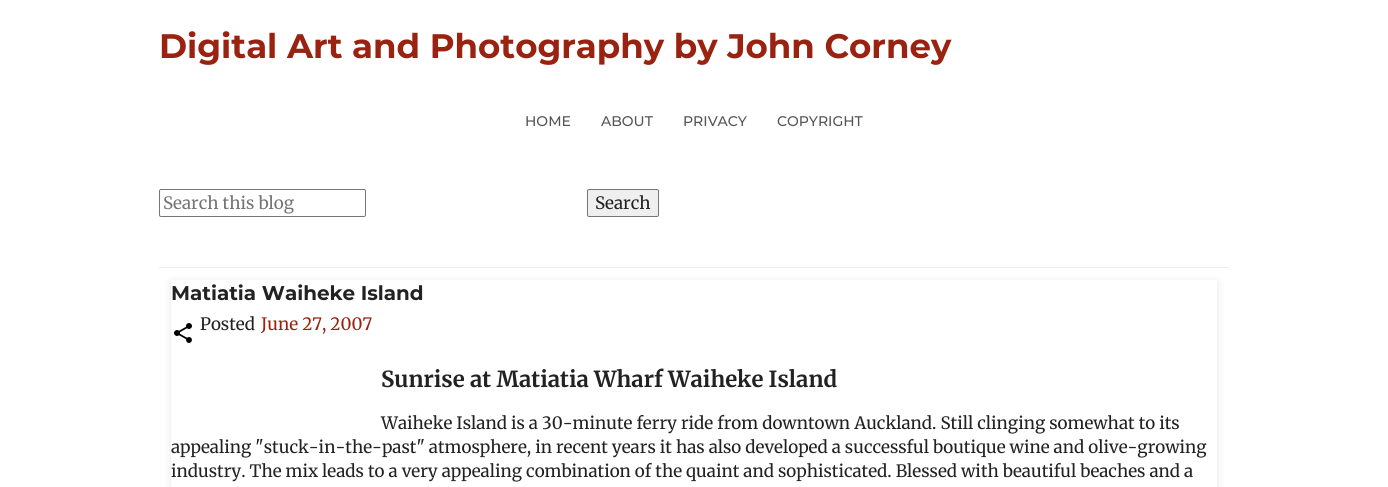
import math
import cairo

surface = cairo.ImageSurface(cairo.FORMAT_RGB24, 1388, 487)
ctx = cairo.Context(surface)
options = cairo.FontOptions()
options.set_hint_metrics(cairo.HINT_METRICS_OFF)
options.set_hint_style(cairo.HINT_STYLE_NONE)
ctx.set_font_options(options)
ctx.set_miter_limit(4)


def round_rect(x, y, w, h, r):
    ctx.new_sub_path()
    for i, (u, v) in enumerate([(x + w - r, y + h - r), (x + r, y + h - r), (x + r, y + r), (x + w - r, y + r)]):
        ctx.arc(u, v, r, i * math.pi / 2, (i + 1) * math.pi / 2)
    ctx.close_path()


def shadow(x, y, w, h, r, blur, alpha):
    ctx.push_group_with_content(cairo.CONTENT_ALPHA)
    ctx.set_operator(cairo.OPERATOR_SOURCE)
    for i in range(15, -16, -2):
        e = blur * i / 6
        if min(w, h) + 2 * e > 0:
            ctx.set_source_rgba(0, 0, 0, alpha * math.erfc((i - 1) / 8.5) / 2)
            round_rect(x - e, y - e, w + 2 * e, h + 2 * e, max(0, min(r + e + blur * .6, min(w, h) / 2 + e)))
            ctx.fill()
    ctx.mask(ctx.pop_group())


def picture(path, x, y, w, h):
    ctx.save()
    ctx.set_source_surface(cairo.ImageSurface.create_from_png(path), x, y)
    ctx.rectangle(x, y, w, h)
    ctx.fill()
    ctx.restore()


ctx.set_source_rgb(1, 1, 1)
ctx.paint()
ctx.select_font_face("Montserrat", cairo.FONT_SLANT_NORMAL, cairo.FONT_WEIGHT_BOLD)
ctx.set_font_size(34)
ctx.set_source_rgb(0.6, 0.133, 0.067)
ctx.move_to(159, 58)
ctx.show_text("Digital Art and Photography by John Corney")
ctx.select_font_face("Montserrat Medium")
ctx.set_font_size(14)
ctx.set_source_rgb(0.333, 0.333, 0.333)
ctx.move_to(525, 126)
ctx.show_text("HOME")
ctx.move_to(601, 126)
ctx.show_text("ABOUT")
ctx.move_to(683, 126)
ctx.show_text("PRIVACY")
ctx.move_to(777, 126)
ctx.show_text("COPYRIGHT")
ctx.set_source_rgb(0.933, 0.933, 0.933)
ctx.rectangle(159, 267, 1070, 1)
ctx.fill()
round_rect(159.5, 189.5, 206, 27, 1.5)
ctx.set_source_rgb(0.463, 0.463, 0.463)
ctx.set_line_width(1)
ctx.stroke()
ctx.select_font_face("Merriweather")
ctx.set_font_size(17)
ctx.set_source_rgb(0.459, 0.459, 0.459)
ctx.move_to(163, 209)
ctx.show_text("Search this blog")
ctx.set_source_rgb(0.937, 0.937, 0.937)
round_rect(587.5, 189.5, 71, 27, 1.5)
ctx.fill_preserve()
ctx.set_source_rgb(0.463, 0.463, 0.463)
ctx.stroke()
ctx.set_source_rgb(0.133, 0.133, 0.133)
ctx.move_to(595, 209)
ctx.show_text("Search")
ctx.save()
ctx.set_fill_rule(cairo.FILL_RULE_EVEN_ODD)
ctx.new_path()
ctx.move_to(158, 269)
ctx.line_to(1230, 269)
ctx.line_to(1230, 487)
ctx.line_to(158, 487)
ctx.close_path()
ctx.move_to(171, 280)
ctx.line_to(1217, 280)
ctx.line_to(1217, 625)
ctx.line_to(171, 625)
ctx.close_path()
ctx.clip()
ctx.set_source_rgb(0, 0, 0)
shadow(171, 282, 1046, 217, 0, 4, 0.1)
ctx.restore()
ctx.select_font_face("Montserrat", cairo.FONT_SLANT_NORMAL, cairo.FONT_WEIGHT_BOLD)
ctx.set_font_size(19.9)
ctx.move_to(171, 300)
ctx.show_text("Matiatia Waiheke Island")
picture("img1.png", 174, 323, 18, 20)
ctx.select_font_face("Merriweather")
ctx.set_font_size(17)
ctx.move_to(200, 330)
ctx.show_text("Posted")
ctx.set_source_rgb(0.6, 0.133, 0.067)
ctx.move_to(261, 330)
ctx.show_text("June 27, 2007")
ctx.select_font_face("Merriweather", cairo.FONT_SLANT_NORMAL, cairo.FONT_WEIGHT_BOLD)
ctx.set_font_size(22.1)
ctx.set_source_rgb(0.133, 0.133, 0.133)
ctx.move_to(381, 387)
ctx.show_text("Sunrise at Matiatia Wharf Waiheke Island")
ctx.select_font_face("Merriweather")
ctx.set_font_size(17)
ctx.move_to(381, 429)
ctx.show_text("Waiheke Island is a 30-minute ferry ride from downtown Auckland. Still clinging somewhat to its")
ctx.move_to(171, 453)
ctx.show_text("appealing \"stuck-in-the-past\" atmosphere, in recent years it has also developed a successful boutique wine and olive-growing")
ctx.move_to(171, 477)
ctx.show_text("industry. The mix leads to a very appealing combination of the quaint and sophisticated. Blessed with beautiful beaches and a")
surface.write_to_png("page.png")
